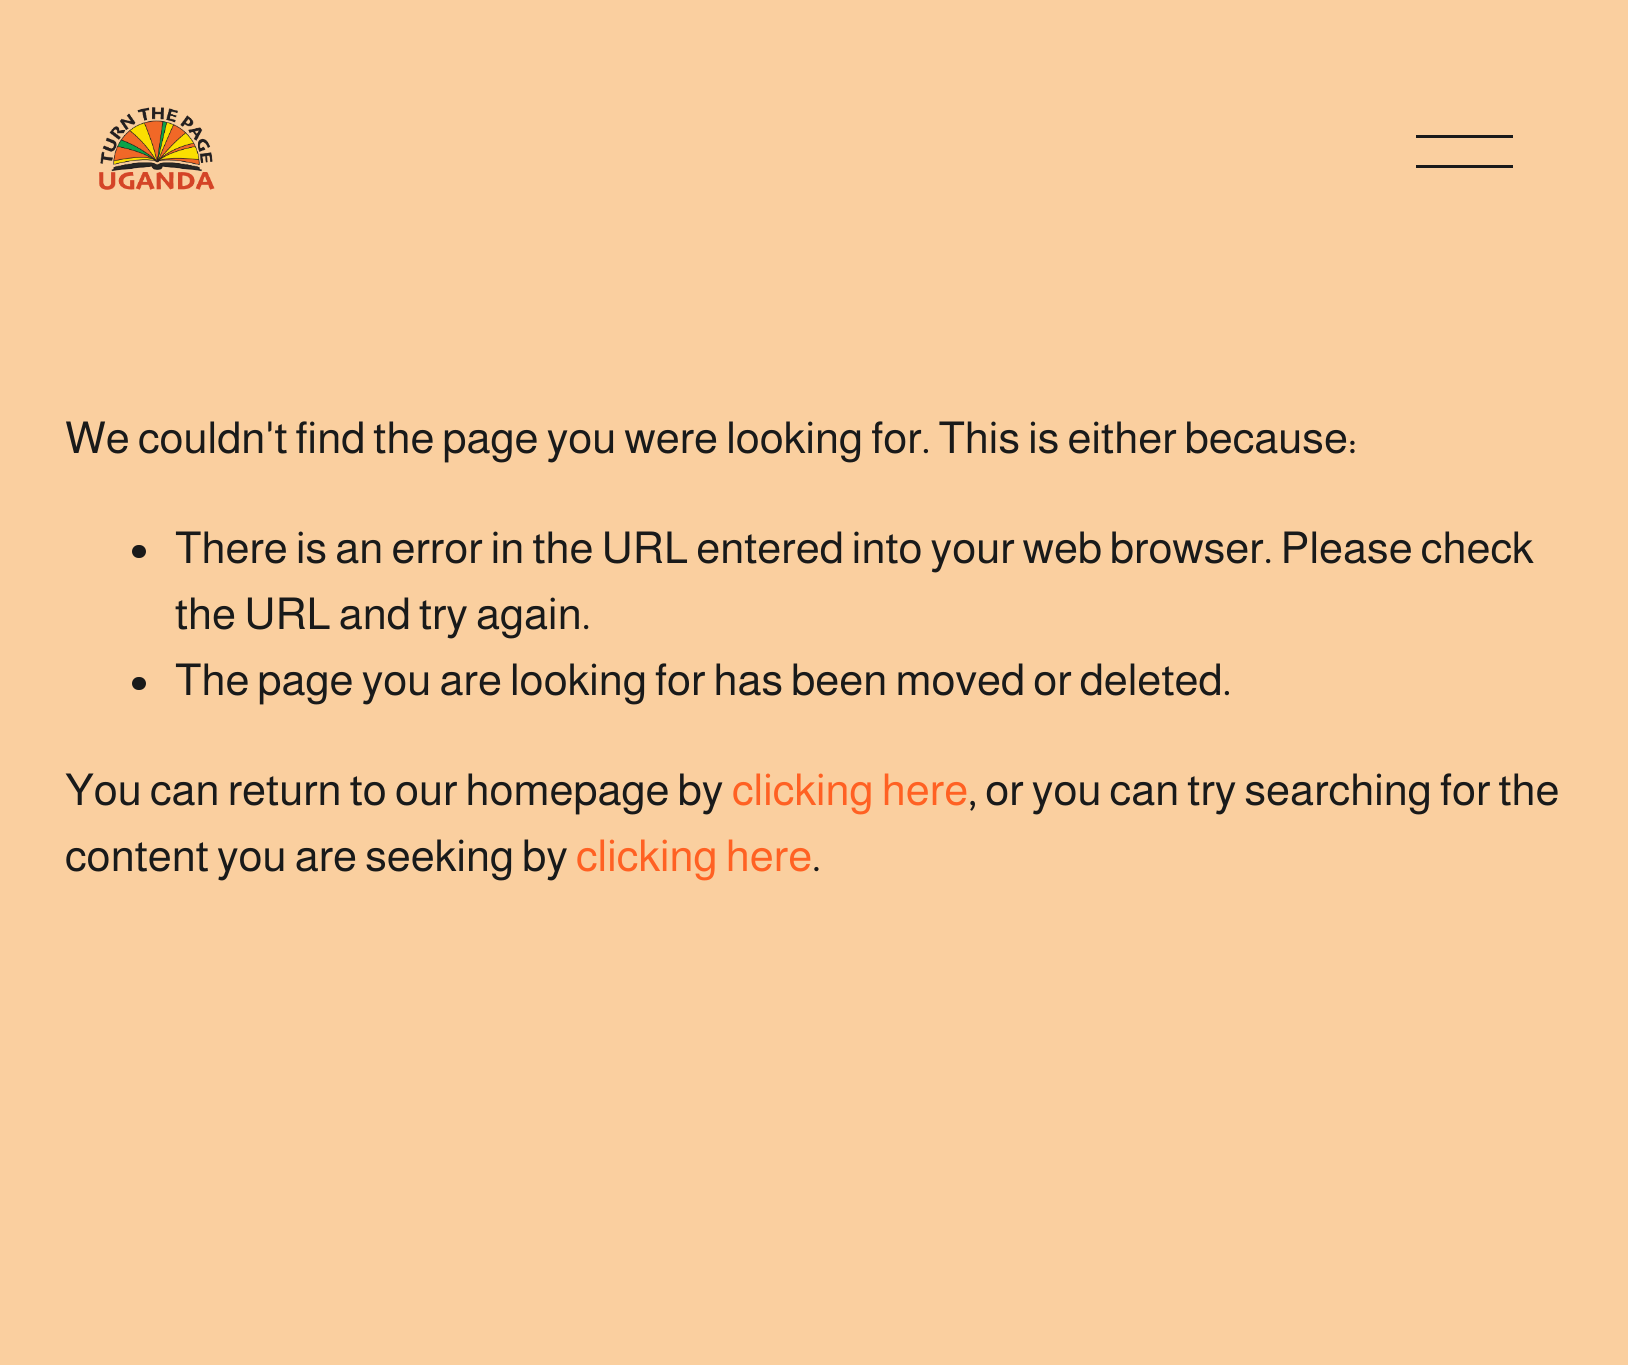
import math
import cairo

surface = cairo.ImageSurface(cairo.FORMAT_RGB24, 1628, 1365)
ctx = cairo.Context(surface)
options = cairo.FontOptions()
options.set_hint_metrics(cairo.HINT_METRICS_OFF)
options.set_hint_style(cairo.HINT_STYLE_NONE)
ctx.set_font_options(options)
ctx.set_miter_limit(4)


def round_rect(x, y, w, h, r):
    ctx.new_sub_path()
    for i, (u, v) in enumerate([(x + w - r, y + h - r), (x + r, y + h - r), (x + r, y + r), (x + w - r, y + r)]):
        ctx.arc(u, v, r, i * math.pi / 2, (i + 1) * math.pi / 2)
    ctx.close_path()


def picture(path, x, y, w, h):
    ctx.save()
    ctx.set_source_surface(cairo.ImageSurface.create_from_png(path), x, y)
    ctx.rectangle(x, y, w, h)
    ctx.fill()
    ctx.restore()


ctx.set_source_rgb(0.98, 0.812, 0.624)
ctx.paint()
picture("img1.png", 99, 107, 116, 83)
ctx.set_source_rgb(0.098, 0.102, 0.102)
ctx.rectangle(1416, 135, 97, 3)
ctx.fill()
ctx.rectangle(1416, 165, 97, 3)
ctx.fill()
ctx.select_font_face("Almarai")
ctx.set_font_size(44)
ctx.move_to(65, 453)
ctx.show_text("We couldn't find the page you were looking for. This is either because:")
round_rect(132, 545, 14, 13, 6.5)
ctx.fill()
ctx.move_to(175, 563)
ctx.show_text("There is an error in the URL entered into your web browser. Please check")
ctx.move_to(175, 629)
ctx.show_text("the URL and try again.")
round_rect(132, 677, 14, 13, 6.5)
ctx.fill()
ctx.move_to(175, 695)
ctx.show_text("The page you are looking for has been moved or deleted.")
ctx.move_to(65, 805)
ctx.show_text("You can return to our homepage by")
ctx.set_source_rgb(1, 0.38, 0.137)
ctx.move_to(732, 805)
ctx.show_text("clicking here")
ctx.set_source_rgb(0.098, 0.102, 0.102)
ctx.move_to(968, 805)
ctx.show_text(", or you can try searching for the")
ctx.move_to(65, 871)
ctx.show_text("content you are seeking by")
ctx.set_source_rgb(1, 0.38, 0.137)
ctx.move_to(576, 871)
ctx.show_text("clicking here")
ctx.set_source_rgb(0.098, 0.102, 0.102)
ctx.move_to(812, 871)
ctx.show_text(".")
surface.write_to_png("page.png")
